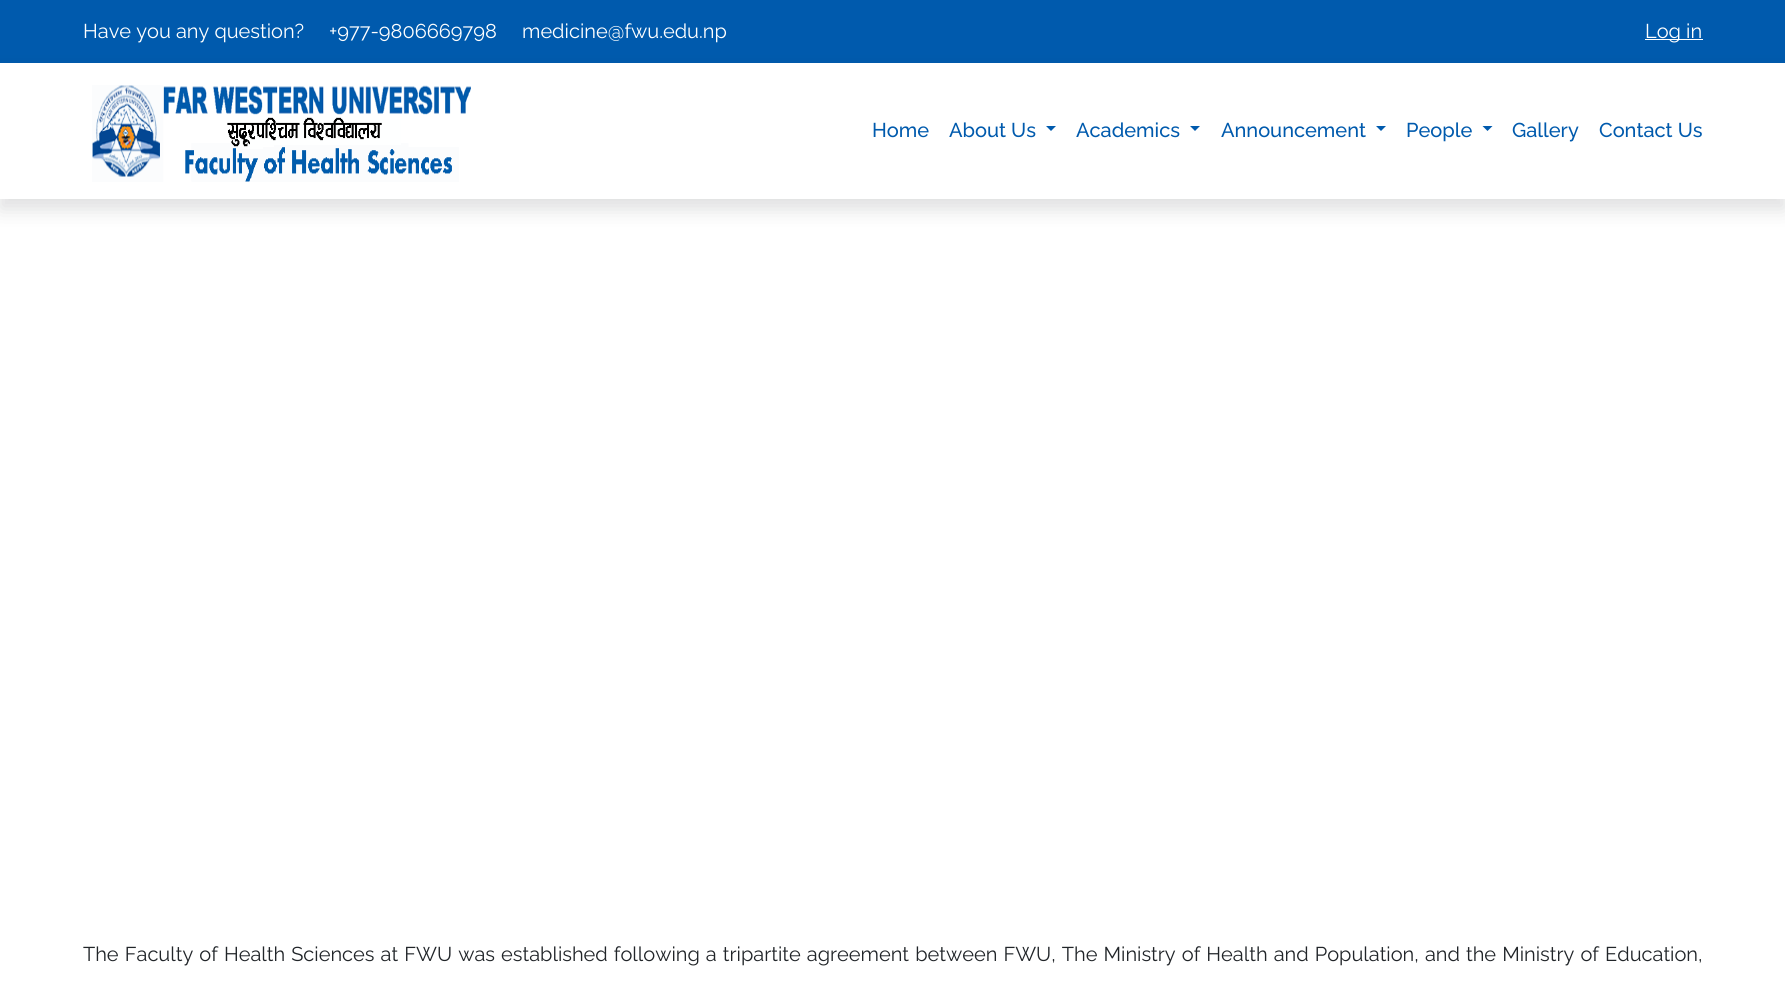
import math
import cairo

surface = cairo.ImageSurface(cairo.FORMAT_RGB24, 1785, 985)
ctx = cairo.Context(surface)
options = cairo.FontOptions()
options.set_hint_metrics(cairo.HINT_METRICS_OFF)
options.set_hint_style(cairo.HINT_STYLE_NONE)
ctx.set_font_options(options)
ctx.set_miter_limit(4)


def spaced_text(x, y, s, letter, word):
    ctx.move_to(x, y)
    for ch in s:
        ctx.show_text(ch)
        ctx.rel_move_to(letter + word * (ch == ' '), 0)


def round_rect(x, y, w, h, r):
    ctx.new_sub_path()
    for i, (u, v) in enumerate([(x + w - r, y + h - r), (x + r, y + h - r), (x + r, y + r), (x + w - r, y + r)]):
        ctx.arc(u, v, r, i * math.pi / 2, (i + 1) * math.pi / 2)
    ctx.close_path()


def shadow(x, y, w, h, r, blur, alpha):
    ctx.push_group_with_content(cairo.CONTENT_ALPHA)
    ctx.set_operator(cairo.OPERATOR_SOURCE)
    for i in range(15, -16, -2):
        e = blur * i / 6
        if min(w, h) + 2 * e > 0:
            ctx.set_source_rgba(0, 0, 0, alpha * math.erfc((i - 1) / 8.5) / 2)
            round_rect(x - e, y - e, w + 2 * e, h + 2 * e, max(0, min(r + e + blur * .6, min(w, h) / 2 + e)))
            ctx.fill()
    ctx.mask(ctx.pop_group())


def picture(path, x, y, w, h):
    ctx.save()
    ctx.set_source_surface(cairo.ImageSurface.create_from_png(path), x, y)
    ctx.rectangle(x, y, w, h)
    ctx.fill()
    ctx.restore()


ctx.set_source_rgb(1, 1, 1)
ctx.paint()
ctx.set_source_rgb(0, 0.353, 0.678)
ctx.rectangle(0, 0, 1785, 63)
ctx.fill()
ctx.select_font_face("Raleway")
ctx.set_font_size(20)
ctx.set_source_rgb(1, 1, 1)
ctx.move_to(83, 38)
ctx.show_text("Have you any question?")
ctx.move_to(329, 38)
ctx.show_text("+977-9806669798")
ctx.move_to(522, 38)
ctx.show_text("medicine@fwu.edu.np")
ctx.rectangle(1645, 39, 58, 1)
ctx.fill()
ctx.move_to(1645, 38)
ctx.show_text("Log in")
ctx.set_source_rgb(0.129, 0.145, 0.161)
shadow(0, 73, 1785, 136, 0, 10, 0.15)
ctx.set_source_rgb(1, 1, 1)
ctx.rectangle(0, 63, 1785, 136)
ctx.fill()
picture("img1.png", 92, 85, 379, 97)
ctx.select_font_face("Raleway Medium")
ctx.set_source_rgb(0, 0.353, 0.678)
ctx.move_to(872, 137)
ctx.show_text("Home")
ctx.move_to(949, 137)
ctx.show_text("About Us")
ctx.new_path()
ctx.move_to(1046, 126)
ctx.line_to(1056, 126)
ctx.line_to(1051, 131)
ctx.close_path()
ctx.fill()
ctx.move_to(1076, 137)
ctx.show_text("Academics")
ctx.new_path()
ctx.move_to(1190, 126)
ctx.line_to(1200, 126)
ctx.line_to(1195, 131)
ctx.close_path()
ctx.fill()
ctx.move_to(1221, 137)
ctx.show_text("Announcement")
ctx.new_path()
ctx.move_to(1376, 126)
ctx.line_to(1386, 126)
ctx.line_to(1381, 131)
ctx.close_path()
ctx.fill()
ctx.move_to(1406, 137)
ctx.show_text("People")
ctx.new_path()
ctx.move_to(1482.5, 126)
ctx.line_to(1492.5, 126)
ctx.line_to(1487.5, 131)
ctx.close_path()
ctx.fill()
ctx.move_to(1512, 137)
ctx.show_text("Gallery")
ctx.move_to(1599, 137)
ctx.show_text("Contact Us")
ctx.select_font_face("Raleway")
ctx.set_source_rgb(0.129, 0.145, 0.161)
spaced_text(83, 961, "The Faculty of Health Sciences at FWU was established following a tripartite agreement between FWU, The Ministry of Health and Population, and the Ministry of Education,", 0, 1)
surface.write_to_png("page.png")
